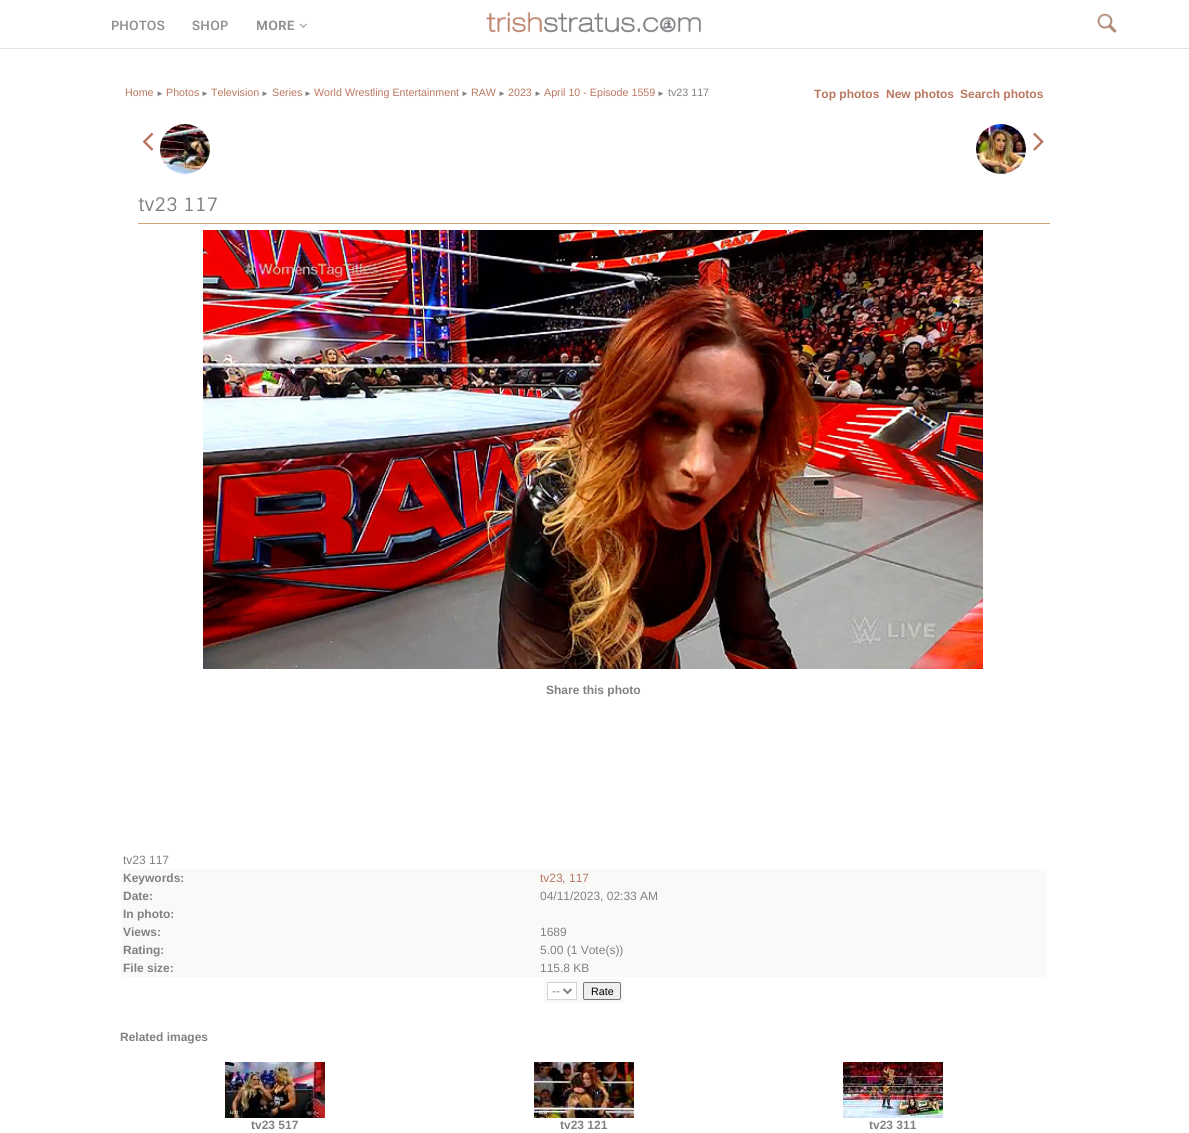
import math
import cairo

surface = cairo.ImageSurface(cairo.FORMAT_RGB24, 1189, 1133)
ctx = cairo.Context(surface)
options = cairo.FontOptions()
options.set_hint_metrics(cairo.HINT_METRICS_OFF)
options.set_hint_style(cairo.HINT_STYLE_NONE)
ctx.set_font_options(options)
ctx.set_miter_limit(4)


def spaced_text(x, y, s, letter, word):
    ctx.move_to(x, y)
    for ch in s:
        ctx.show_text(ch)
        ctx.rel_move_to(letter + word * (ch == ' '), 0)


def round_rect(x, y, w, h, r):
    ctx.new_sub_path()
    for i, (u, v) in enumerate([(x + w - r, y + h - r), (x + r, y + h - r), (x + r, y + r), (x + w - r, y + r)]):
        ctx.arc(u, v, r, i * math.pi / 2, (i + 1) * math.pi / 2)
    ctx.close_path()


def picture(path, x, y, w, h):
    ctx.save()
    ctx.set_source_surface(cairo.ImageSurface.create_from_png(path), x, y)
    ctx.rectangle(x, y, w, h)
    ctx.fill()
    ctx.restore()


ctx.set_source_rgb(1, 1, 1)
ctx.paint()
ctx.set_source_rgb(0.886, 0.886, 0.886)
ctx.rectangle(0, 48, 1189, 1)
ctx.fill()
ctx.select_font_face("Roboto Flex SemiBold")
ctx.set_font_size(13)
ctx.set_source_rgb(0.565, 0.565, 0.565)
spaced_text(111, 30, "PHOTOS", 0.25, 0)
spaced_text(192, 30, "SHOP", 0.25, 0)
ctx.select_font_face("Roboto Flex", cairo.FONT_SLANT_NORMAL, cairo.FONT_WEIGHT_BOLD)
spaced_text(256, 30, "MORE", 0.25, 0)
picture("img1.png", 299, 23, 8, 5)
picture("img2.png", 486, 12, 216, 21)
picture("img3.png", 1097, 13, 20, 20)
ctx.select_font_face("Liberation Sans")
ctx.set_font_size(10.7)
ctx.set_source_rgb(0.725, 0.467, 0.373)
ctx.move_to(125, 96)
ctx.show_text("Home")
ctx.set_font_size(8)
ctx.set_source_rgb(0.506, 0.506, 0.506)
ctx.move_to(156, 96)
ctx.show_text("►")
ctx.set_font_size(10.7)
ctx.set_source_rgb(0.725, 0.467, 0.373)
ctx.move_to(166, 96)
ctx.show_text("Photos")
ctx.set_font_size(8)
ctx.set_source_rgb(0.506, 0.506, 0.506)
ctx.move_to(201, 96)
ctx.show_text("►")
ctx.set_font_size(10.7)
ctx.set_source_rgb(0.725, 0.467, 0.373)
ctx.move_to(211, 96)
ctx.show_text("Television")
ctx.set_font_size(8)
ctx.set_source_rgb(0.506, 0.506, 0.506)
ctx.move_to(261, 96)
ctx.show_text("►")
ctx.set_font_size(10.7)
ctx.set_source_rgb(0.725, 0.467, 0.373)
ctx.move_to(272, 96)
ctx.show_text("Series")
ctx.set_font_size(8)
ctx.set_source_rgb(0.506, 0.506, 0.506)
ctx.move_to(304, 96)
ctx.show_text("►")
ctx.set_font_size(10.7)
ctx.set_source_rgb(0.725, 0.467, 0.373)
ctx.move_to(314, 96)
ctx.show_text("World Wrestling Entertainment")
ctx.set_font_size(8)
ctx.set_source_rgb(0.506, 0.506, 0.506)
ctx.move_to(461, 96)
ctx.show_text("►")
ctx.set_font_size(10.7)
ctx.set_source_rgb(0.725, 0.467, 0.373)
ctx.move_to(471, 96)
ctx.show_text("RAW")
ctx.set_font_size(8)
ctx.set_source_rgb(0.506, 0.506, 0.506)
ctx.move_to(498, 96)
ctx.show_text("►")
ctx.set_font_size(10.7)
ctx.set_source_rgb(0.725, 0.467, 0.373)
ctx.move_to(508, 96)
ctx.show_text("2023")
ctx.set_font_size(8)
ctx.set_source_rgb(0.506, 0.506, 0.506)
ctx.move_to(534, 96)
ctx.show_text("►")
ctx.set_font_size(10.7)
ctx.set_source_rgb(0.725, 0.467, 0.373)
ctx.move_to(544, 96)
ctx.show_text("April 10 - Episode 1559")
ctx.set_font_size(8)
ctx.set_source_rgb(0.506, 0.506, 0.506)
ctx.move_to(657, 96)
ctx.show_text("►")
ctx.set_font_size(10.7)
ctx.move_to(668, 96)
ctx.show_text("tv23 117")
ctx.select_font_face("Liberation Sans", cairo.FONT_SLANT_NORMAL, cairo.FONT_WEIGHT_BOLD)
ctx.set_font_size(12)
ctx.set_source_rgb(0.725, 0.467, 0.373)
ctx.move_to(814, 98)
ctx.show_text("Top photos")
ctx.move_to(886, 98)
ctx.show_text("New photos")
ctx.move_to(960, 98)
ctx.show_text("Search photos")
picture("img4.png", 142, 132, 12, 19)
picture("img5.png", 160, 124, 50, 50)
picture("img6.png", 976, 124, 50, 50)
picture("img7.png", 1033, 132, 11, 19)
ctx.select_font_face("Sintony")
ctx.set_font_size(18.5)
ctx.set_source_rgb(0.506, 0.506, 0.506)
ctx.move_to(138, 211)
ctx.show_text("tv23 117")
ctx.set_source_rgb(0.831, 0.647, 0.482)
ctx.rectangle(138, 223, 912, 1)
ctx.fill()
picture("img8.png", 203, 230, 780, 439)
ctx.select_font_face("Liberation Sans", cairo.FONT_SLANT_NORMAL, cairo.FONT_WEIGHT_BOLD)
ctx.set_font_size(12)
ctx.set_source_rgb(0.506, 0.506, 0.506)
ctx.move_to(546, 694)
ctx.show_text("Share this photo")
ctx.select_font_face("Liberation Sans")
ctx.move_to(123, 864)
ctx.show_text("tv23 117")
ctx.set_source_rgb(0.976, 0.973, 0.965)
ctx.rectangle(121, 869, 926, 18)
ctx.fill()
ctx.select_font_face("Liberation Sans", cairo.FONT_SLANT_NORMAL, cairo.FONT_WEIGHT_BOLD)
ctx.set_source_rgb(0.506, 0.506, 0.506)
ctx.move_to(123, 882)
ctx.show_text("Keywords:")
ctx.select_font_face("Liberation Sans")
ctx.set_source_rgb(0.725, 0.467, 0.373)
ctx.move_to(540, 882)
ctx.show_text("tv23")
ctx.set_source_rgb(0.506, 0.506, 0.506)
ctx.move_to(562, 882)
ctx.show_text(",")
ctx.set_source_rgb(0.725, 0.467, 0.373)
ctx.move_to(569, 882)
ctx.show_text("117")
ctx.set_source_rgb(0.976, 0.973, 0.965)
ctx.rectangle(121, 887, 926, 18)
ctx.fill()
ctx.select_font_face("Liberation Sans", cairo.FONT_SLANT_NORMAL, cairo.FONT_WEIGHT_BOLD)
ctx.set_source_rgb(0.506, 0.506, 0.506)
ctx.move_to(123, 900)
ctx.show_text("Date:")
ctx.select_font_face("Liberation Sans")
ctx.move_to(540, 900)
ctx.show_text("04/11/2023, 02:33 AM")
ctx.set_source_rgb(0.976, 0.973, 0.965)
ctx.rectangle(121, 905, 926, 18)
ctx.fill()
ctx.select_font_face("Liberation Sans", cairo.FONT_SLANT_NORMAL, cairo.FONT_WEIGHT_BOLD)
ctx.set_source_rgb(0.506, 0.506, 0.506)
ctx.move_to(123, 918)
ctx.show_text("In photo:")
ctx.set_source_rgb(0.976, 0.973, 0.965)
ctx.rectangle(121, 923, 926, 18)
ctx.fill()
ctx.set_source_rgb(0.506, 0.506, 0.506)
ctx.move_to(123, 936)
ctx.show_text("Views:")
ctx.select_font_face("Liberation Sans")
ctx.move_to(540, 936)
ctx.show_text("1689")
ctx.set_source_rgb(0.976, 0.973, 0.965)
ctx.rectangle(121, 941, 926, 18)
ctx.fill()
ctx.select_font_face("Liberation Sans", cairo.FONT_SLANT_NORMAL, cairo.FONT_WEIGHT_BOLD)
ctx.set_source_rgb(0.506, 0.506, 0.506)
ctx.move_to(123, 954)
ctx.show_text("Rating:")
ctx.select_font_face("Liberation Sans")
ctx.move_to(540, 954)
ctx.show_text("5.00 (1 Vote(s))")
ctx.set_source_rgb(0.976, 0.973, 0.965)
ctx.rectangle(121, 959, 926, 18)
ctx.fill()
ctx.select_font_face("Liberation Sans", cairo.FONT_SLANT_NORMAL, cairo.FONT_WEIGHT_BOLD)
ctx.set_source_rgb(0.506, 0.506, 0.506)
ctx.move_to(123, 972)
ctx.show_text("File size:")
ctx.select_font_face("Liberation Sans")
ctx.move_to(540, 972)
ctx.show_text("115.8 KB")
ctx.set_source_rgb(0.976, 0.973, 0.965)
ctx.rectangle(544, 979, 80, 24)
ctx.fill()
ctx.set_source_rgb(1, 1, 1)
ctx.rectangle(547.5, 982.5, 29, 17)
ctx.fill_preserve()
ctx.set_source_rgb(0.831, 0.831, 0.831)
ctx.set_line_width(1)
ctx.stroke()
ctx.new_path()
ctx.move_to(563.5, 989)
ctx.line_to(567.5, 993)
ctx.line_to(571.5, 989)
ctx.set_source_rgb(0.506, 0.506, 0.506)
ctx.set_line_width(2)
ctx.stroke()
ctx.move_to(552, 995)
ctx.show_text("--")
ctx.set_source_rgb(0.937, 0.937, 0.937)
round_rect(583.5, 982.5, 37, 17, 1.5)
ctx.fill_preserve()
ctx.set_source_rgb(0.463, 0.463, 0.463)
ctx.set_line_width(1)
ctx.stroke()
ctx.set_font_size(10.7)
ctx.set_source_rgb(0, 0, 0)
ctx.move_to(591, 995)
ctx.show_text("Rate")
ctx.select_font_face("Liberation Sans", cairo.FONT_SLANT_NORMAL, cairo.FONT_WEIGHT_BOLD)
ctx.set_font_size(12)
ctx.set_source_rgb(0.506, 0.506, 0.506)
ctx.move_to(120, 1041)
ctx.show_text("Related images")
picture("img9.png", 225, 1062, 100, 56)
ctx.move_to(251, 1129)
ctx.show_text("tv23 517")
picture("img10.png", 534, 1062, 100, 56)
ctx.move_to(560, 1129)
ctx.show_text("tv23 121")
picture("img11.png", 843, 1062, 100, 56)
ctx.move_to(869, 1129)
ctx.show_text("tv23 311")
surface.write_to_png("page.png")
